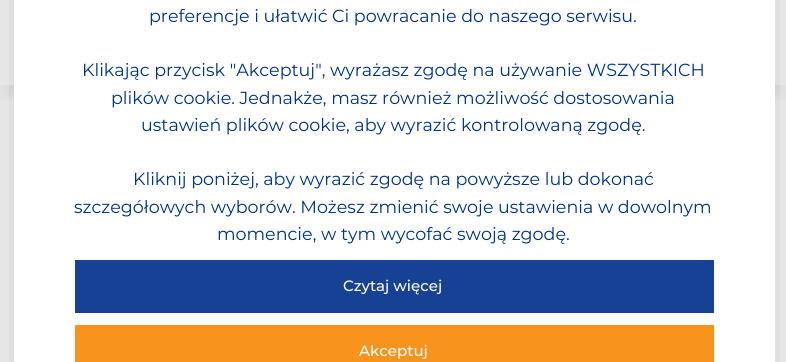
import math
import cairo

surface = cairo.ImageSurface(cairo.FORMAT_RGB24, 786, 362)
ctx = cairo.Context(surface)
options = cairo.FontOptions()
options.set_hint_metrics(cairo.HINT_METRICS_OFF)
options.set_hint_style(cairo.HINT_STYLE_NONE)
ctx.set_font_options(options)
ctx.set_miter_limit(4)


def round_rect(x, y, w, h, r):
    ctx.new_sub_path()
    for i, (u, v) in enumerate([(x + w - r, y + h - r), (x + r, y + h - r), (x + r, y + r), (x + w - r, y + r)]):
        ctx.arc(u, v, r, i * math.pi / 2, (i + 1) * math.pi / 2)
    ctx.close_path()


def shadow(x, y, w, h, r, blur, alpha):
    ctx.push_group_with_content(cairo.CONTENT_ALPHA)
    ctx.set_operator(cairo.OPERATOR_SOURCE)
    for i in range(15, -16, -2):
        e = blur * i / 6
        if min(w, h) + 2 * e > 0:
            ctx.set_source_rgba(0, 0, 0, alpha * math.erfc((i - 1) / 8.5) / 2)
            round_rect(x - e, y - e, w + 2 * e, h + 2 * e, max(0, min(r + e + blur * .6, min(w, h) / 2 + e)))
            ctx.fill()
    ctx.mask(ctx.pop_group())


ctx.set_source_rgb(1, 1, 1)
ctx.paint()
ctx.save()
ctx.rectangle(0, 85, 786, 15)
ctx.clip()
ctx.set_source_rgb(0.063, 0.094, 0.157)
shadow(5, 20, 776, 75, 0, 10, 0.08)
ctx.restore()
ctx.set_source_rgb(0, 0, 0)
shadow(4, -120, 781, 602, 30, 30, 0.2)
ctx.set_source_rgb(1, 1, 1)
ctx.rectangle(14, 0, 761, 362)
ctx.fill()
ctx.select_font_face("Montserrat")
ctx.set_font_size(17.5)
ctx.set_source_rgb(0, 0.196, 0.494)
ctx.move_to(149, 22)
ctx.show_text("preferencje i ułatwić Ci powracanie do naszego serwisu.")
ctx.move_to(82, 76)
ctx.show_text("Klikając przycisk \"Akceptuj\", wyrażasz zgodę na używanie WSZYSTKICH")
ctx.move_to(111, 104)
ctx.show_text("plików cookie. Jednakże, masz również możliwość dostosowania")
ctx.move_to(141, 131)
ctx.show_text("ustawień plików cookie, aby wyrazić kontrolowaną zgodę.")
ctx.move_to(133, 185)
ctx.show_text("Kliknij poniżej, aby wyrazić zgodę na powyższe lub dokonać")
ctx.move_to(74, 213)
ctx.show_text("szczegółowych wyborów. Możesz zmienić swoje ustawienia w dowolnym")
ctx.move_to(217, 240)
ctx.show_text("momencie, w tym wycofać swoją zgodę.")
ctx.set_source_rgb(0.086, 0.255, 0.58)
ctx.rectangle(75, 260, 639, 53)
ctx.fill()
ctx.select_font_face("Montserrat Medium")
ctx.set_font_size(15)
ctx.set_source_rgb(1, 1, 1)
ctx.move_to(343, 291)
ctx.show_text("Czytaj więcej")
ctx.set_source_rgb(0.969, 0.58, 0.114)
ctx.rectangle(75, 325, 639, 37)
ctx.fill()
ctx.set_source_rgb(1, 1, 1)
ctx.move_to(359, 356)
ctx.show_text("Akceptuj")
surface.write_to_png("page.png")
